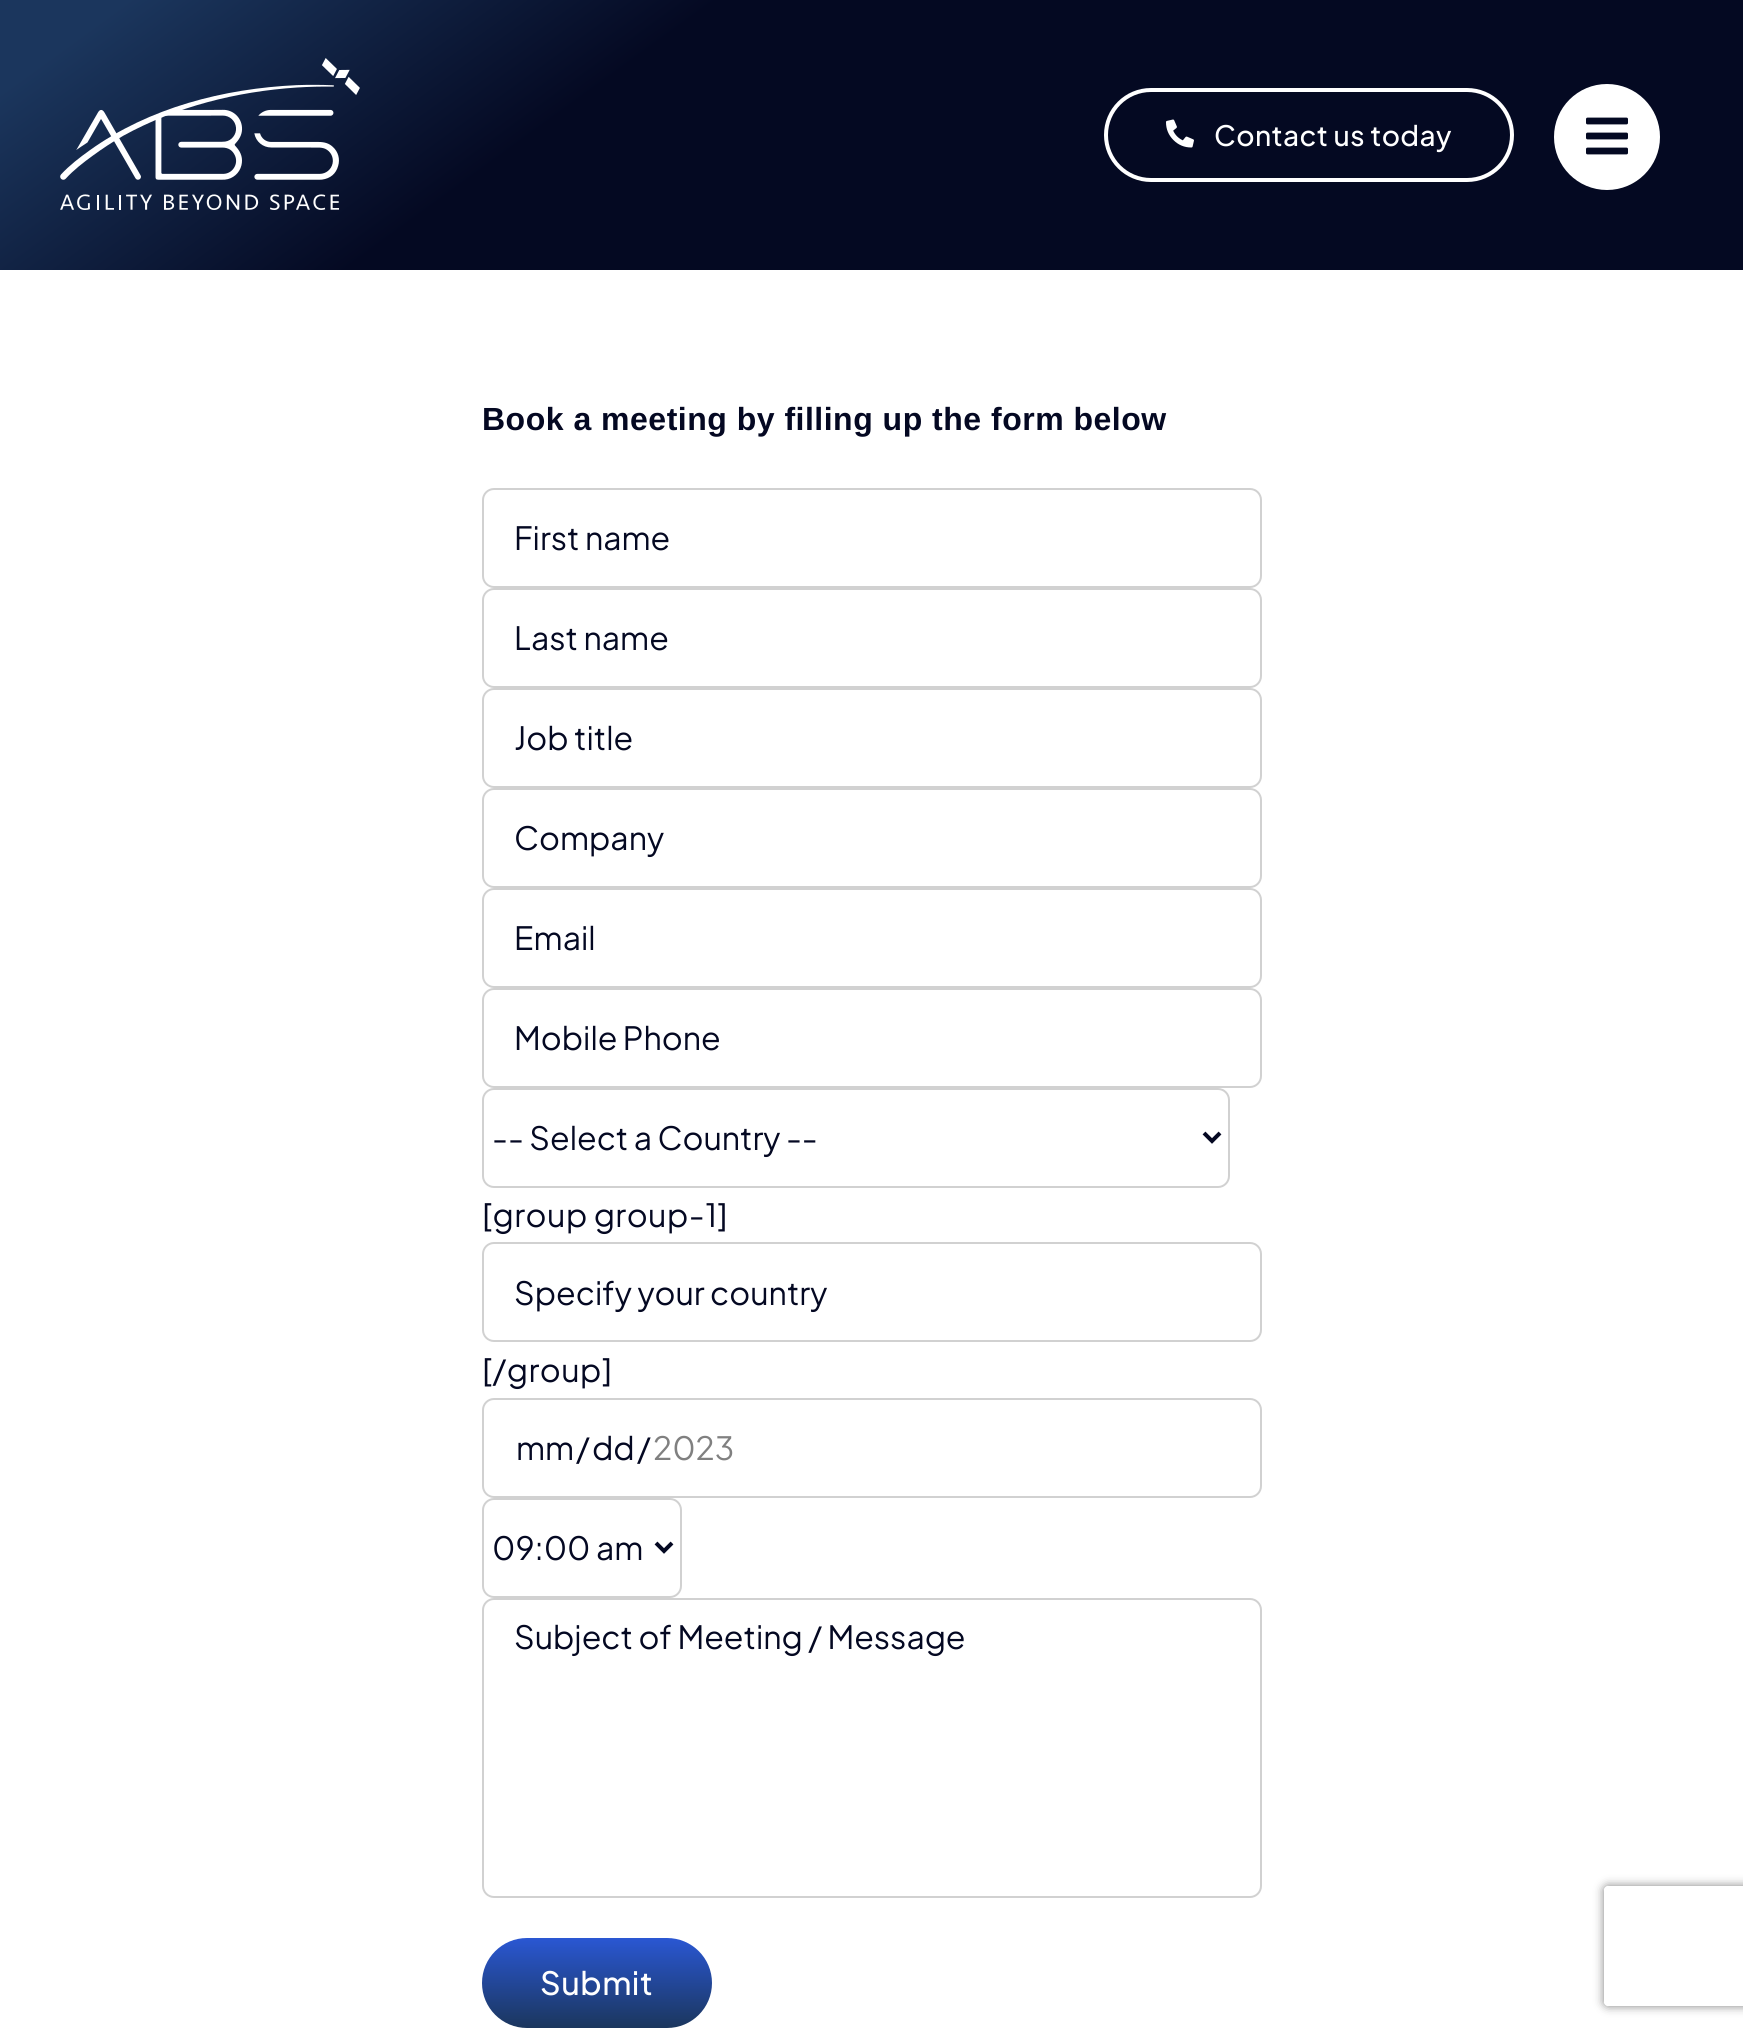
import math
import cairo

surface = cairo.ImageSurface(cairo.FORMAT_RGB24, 1743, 2034)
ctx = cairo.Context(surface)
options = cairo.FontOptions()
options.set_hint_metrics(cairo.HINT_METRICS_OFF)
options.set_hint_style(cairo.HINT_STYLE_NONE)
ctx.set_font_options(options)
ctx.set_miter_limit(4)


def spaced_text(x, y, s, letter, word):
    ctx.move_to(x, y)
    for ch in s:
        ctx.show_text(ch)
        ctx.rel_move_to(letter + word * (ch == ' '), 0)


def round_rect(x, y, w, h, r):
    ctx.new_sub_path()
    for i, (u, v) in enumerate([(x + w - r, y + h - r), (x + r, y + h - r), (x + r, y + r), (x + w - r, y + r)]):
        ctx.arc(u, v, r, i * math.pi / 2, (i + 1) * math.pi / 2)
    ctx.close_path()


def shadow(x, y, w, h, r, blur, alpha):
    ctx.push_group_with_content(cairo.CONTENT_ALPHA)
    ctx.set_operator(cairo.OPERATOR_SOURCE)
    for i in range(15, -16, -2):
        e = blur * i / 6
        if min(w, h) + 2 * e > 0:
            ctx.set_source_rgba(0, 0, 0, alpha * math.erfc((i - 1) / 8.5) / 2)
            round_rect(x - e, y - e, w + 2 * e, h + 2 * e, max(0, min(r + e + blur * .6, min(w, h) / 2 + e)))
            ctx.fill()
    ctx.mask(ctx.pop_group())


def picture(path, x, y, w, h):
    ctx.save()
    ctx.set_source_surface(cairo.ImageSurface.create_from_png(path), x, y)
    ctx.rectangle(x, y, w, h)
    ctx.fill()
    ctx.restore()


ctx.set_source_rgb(1, 1, 1)
ctx.paint()
gradient = cairo.LinearGradient(507, -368, 1237, 638)
gradient.add_color_stop_rgba(0.06, 0.106, 0.212, 0.365, 1)
gradient.add_color_stop_rgba(0.34, 0.016, 0.035, 0.133, 1)
ctx.set_source(gradient)
ctx.rectangle(0, 0, 1743, 270)
ctx.fill()
picture("img1.png", 60, 58, 300, 152)
round_rect(1106, 90, 406, 90, 45)
ctx.set_source_rgb(1, 1, 1)
ctx.set_line_width(4)
ctx.stroke()
picture("img2.png", 1166, 119, 28, 29)
ctx.select_font_face("Plus Jakarta Sans Medium")
ctx.set_font_size(28)
spaced_text(1214, 146, "Contact us today", 0.4, 0)
ctx.new_path()
ctx.arc(1607, 137, 53, 0, 2 * math.pi)
ctx.fill()
picture("img3.png", 1586, 117, 42, 38)
ctx.select_font_face("Liberation Sans", cairo.FONT_SLANT_NORMAL, cairo.FONT_WEIGHT_BOLD)
ctx.set_font_size(32)
ctx.set_source_rgb(0.016, 0.035, 0.133)
spaced_text(482, 430, "Book a meeting by filling up the form below", 0.5, 0)
round_rect(483, 489, 778, 98, 11)
ctx.set_source_rgb(0.82, 0.82, 0.82)
ctx.set_line_width(2)
ctx.stroke()
ctx.select_font_face("Plus Jakarta Sans")
ctx.set_source_rgb(0.016, 0.035, 0.133)
ctx.move_to(514, 550)
ctx.show_text("First name")
round_rect(483, 589, 778, 98, 11)
ctx.set_source_rgb(0.82, 0.82, 0.82)
ctx.stroke()
ctx.set_source_rgb(0.016, 0.035, 0.133)
ctx.move_to(514, 650)
ctx.show_text("Last name")
round_rect(483, 689, 778, 98, 11)
ctx.set_source_rgb(0.82, 0.82, 0.82)
ctx.stroke()
ctx.set_source_rgb(0.016, 0.035, 0.133)
ctx.move_to(514, 750)
ctx.show_text("Job title")
round_rect(483, 789, 778, 98, 11)
ctx.set_source_rgb(0.82, 0.82, 0.82)
ctx.stroke()
ctx.set_source_rgb(0.016, 0.035, 0.133)
ctx.move_to(514, 850)
ctx.show_text("Company")
round_rect(483, 889, 778, 98, 11)
ctx.set_source_rgb(0.82, 0.82, 0.82)
ctx.stroke()
ctx.set_source_rgb(0.016, 0.035, 0.133)
ctx.move_to(514, 950)
ctx.show_text("Email")
round_rect(483, 989, 778, 98, 11)
ctx.set_source_rgb(0.82, 0.82, 0.82)
ctx.stroke()
ctx.set_source_rgb(0.016, 0.035, 0.133)
ctx.move_to(514, 1050)
ctx.show_text("Mobile Phone")
round_rect(483, 1089, 746, 98, 11)
ctx.set_source_rgb(0.82, 0.82, 0.82)
ctx.stroke()
ctx.new_path()
ctx.move_to(1204, 1133)
ctx.line_to(1212, 1141)
ctx.line_to(1220, 1133)
ctx.set_source_rgb(0.016, 0.035, 0.133)
ctx.set_line_width(4)
ctx.stroke()
ctx.move_to(492, 1150)
ctx.show_text("-- Select a Country --")
spaced_text(482, 1227, "[group group-1]", 0.5, 0)
round_rect(483, 1243, 778, 98, 11)
ctx.set_source_rgb(0.82, 0.82, 0.82)
ctx.set_line_width(2)
ctx.stroke()
ctx.set_source_rgb(0.016, 0.035, 0.133)
ctx.move_to(514, 1305)
ctx.show_text("Specify your country")
spaced_text(482, 1382, "[/group]", 0.5, 0)
round_rect(483, 1399, 778, 98, 11)
ctx.set_source_rgb(0.82, 0.82, 0.82)
ctx.stroke()
ctx.set_source_rgb(0.016, 0.035, 0.133)
ctx.move_to(516, 1460)
ctx.show_text("mm")
ctx.move_to(576, 1460)
ctx.show_text("/")
ctx.move_to(592, 1460)
ctx.show_text("dd")
ctx.move_to(637, 1460)
ctx.show_text("/")
ctx.set_source_rgb(0.502, 0.502, 0.502)
ctx.move_to(653, 1460)
ctx.show_text("2023")
round_rect(483, 1499, 198, 98, 11)
ctx.set_source_rgb(0.82, 0.82, 0.82)
ctx.stroke()
ctx.new_path()
ctx.move_to(656, 1543)
ctx.line_to(664, 1551)
ctx.line_to(672, 1543)
ctx.set_source_rgb(0.016, 0.035, 0.133)
ctx.set_line_width(4)
ctx.stroke()
ctx.move_to(492, 1560)
ctx.show_text("09:00 am")
round_rect(483, 1599, 778, 298, 11)
ctx.set_source_rgb(0.82, 0.82, 0.82)
ctx.set_line_width(2)
ctx.stroke()
ctx.set_source_rgb(0.016, 0.035, 0.133)
ctx.move_to(514, 1649)
ctx.show_text("Subject of Meeting / Message")
gradient = cairo.LinearGradient(597, 1938, 597, 2028)
gradient.add_color_stop_rgba(0, 0.165, 0.341, 0.827, 1)
gradient.add_color_stop_rgba(1, 0.106, 0.212, 0.365, 1)
ctx.set_source(gradient)
round_rect(482, 1938, 230, 90, 45)
ctx.fill()
ctx.select_font_face("Plus Jakarta Sans Medium")
ctx.set_source_rgb(1, 1, 1)
spaced_text(540, 1995, "Submit", 0.5, 0)
ctx.save()
ctx.set_fill_rule(cairo.FILL_RULE_EVEN_ODD)
ctx.new_path()
ctx.move_to(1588, 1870)
ctx.line_to(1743, 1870)
ctx.line_to(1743, 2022)
ctx.line_to(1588, 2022)
ctx.close_path()
ctx.move_to(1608, 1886)
ctx.line_to(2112, 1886)
ctx.curve_to(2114, 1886, 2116, 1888, 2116, 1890)
ctx.line_to(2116, 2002)
ctx.curve_to(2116, 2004, 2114, 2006, 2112, 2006)
ctx.line_to(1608, 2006)
ctx.curve_to(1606, 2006, 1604, 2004, 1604, 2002)
ctx.line_to(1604, 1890)
ctx.curve_to(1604, 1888, 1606, 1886, 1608, 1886)
ctx.close_path()
ctx.clip()
ctx.set_source_rgb(0.502, 0.502, 0.502)
shadow(1604, 1886, 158, 120, 4, 5, 1)
ctx.restore()
surface.write_to_png("page.png")
